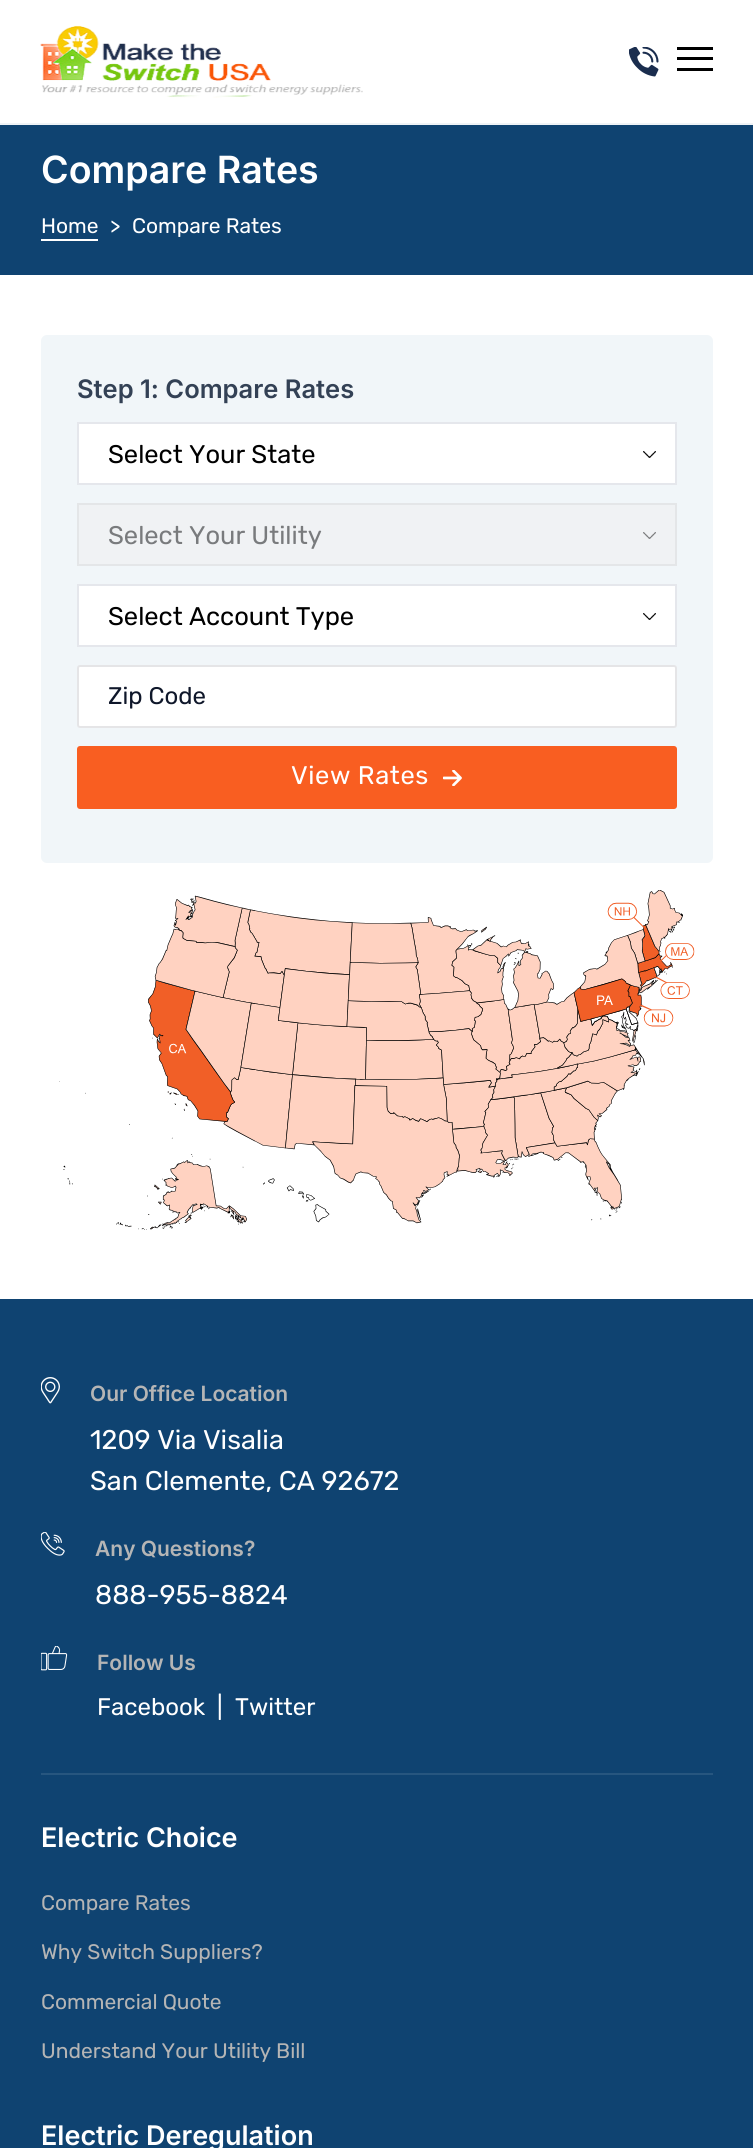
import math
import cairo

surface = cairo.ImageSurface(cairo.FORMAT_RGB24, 753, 2148)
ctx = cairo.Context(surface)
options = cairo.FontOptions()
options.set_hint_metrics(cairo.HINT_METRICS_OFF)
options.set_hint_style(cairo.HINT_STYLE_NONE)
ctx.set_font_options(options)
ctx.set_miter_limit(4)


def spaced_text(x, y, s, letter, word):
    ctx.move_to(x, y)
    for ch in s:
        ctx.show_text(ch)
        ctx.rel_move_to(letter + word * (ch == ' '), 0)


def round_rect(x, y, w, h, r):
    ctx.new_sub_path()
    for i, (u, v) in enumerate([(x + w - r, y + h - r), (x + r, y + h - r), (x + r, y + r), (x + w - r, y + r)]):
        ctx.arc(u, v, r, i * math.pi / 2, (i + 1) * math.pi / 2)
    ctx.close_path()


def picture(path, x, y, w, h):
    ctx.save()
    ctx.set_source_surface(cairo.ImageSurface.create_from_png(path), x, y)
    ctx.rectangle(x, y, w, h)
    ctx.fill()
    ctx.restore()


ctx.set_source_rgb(1, 1, 1)
ctx.paint()
ctx.set_source_rgb(0.937, 0.953, 0.961)
ctx.rectangle(0, 123, 753, 2)
ctx.fill()
picture("img1.png", 40, 25, 323, 73)
picture("img2.png", 629, 47, 30, 30)
ctx.set_source_rgb(0, 0, 0)
ctx.rectangle(677, 47, 36, 3)
ctx.fill()
ctx.rectangle(677, 57, 36, 3)
ctx.fill()
ctx.rectangle(677, 68, 36, 3)
ctx.fill()
ctx.set_source_rgb(0.059, 0.263, 0.443)
ctx.rectangle(0, 125, 753, 150)
ctx.fill()
ctx.select_font_face("Inter SemiBold")
ctx.set_font_size(37.5)
ctx.set_source_rgb(1, 1, 1)
ctx.move_to(41, 183)
ctx.show_text("Compare Rates")
ctx.select_font_face("Rubik")
ctx.set_font_size(21)
ctx.move_to(41, 233)
ctx.show_text("Home")
ctx.rectangle(41, 239, 57, 2)
ctx.fill()
ctx.move_to(110, 233)
ctx.show_text(">")
ctx.move_to(132, 233)
ctx.show_text("Compare Rates")
ctx.set_source_rgb(0.945, 0.961, 0.976)
round_rect(41, 335, 672, 528, 6)
ctx.fill()
ctx.select_font_face("Inter SemiBold")
ctx.set_font_size(25.5)
ctx.set_source_rgb(0.2, 0.255, 0.333)
ctx.move_to(77, 398)
ctx.show_text("Step 1: Compare Rates")
ctx.set_source_rgb(1, 1, 1)
ctx.rectangle(78, 423, 598, 61)
ctx.fill_preserve()
ctx.set_source_rgb(0.898, 0.906, 0.922)
ctx.stroke()
ctx.select_font_face("Rubik")
ctx.set_source_rgb(0, 0, 0)
ctx.move_to(108, 463)
ctx.show_text("Select Your State")
picture("img3.png", 643, 451, 13, 7)
ctx.set_source_rgb(0.941, 0.949, 0.957)
ctx.rectangle(78, 504, 598, 61)
ctx.fill_preserve()
ctx.set_source_rgb(0.894, 0.902, 0.91)
ctx.stroke()
ctx.set_source_rgb(0.475, 0.482, 0.49)
ctx.move_to(108, 544)
ctx.show_text("Select Your Utility")
picture("img4.png", 643, 532, 13, 7)
ctx.set_source_rgb(1, 1, 1)
ctx.rectangle(78, 585, 598, 61)
ctx.fill_preserve()
ctx.set_source_rgb(0.898, 0.906, 0.922)
ctx.stroke()
ctx.set_source_rgb(0, 0, 0)
ctx.move_to(108, 625)
ctx.show_text("Select Account Type")
picture("img3.png", 643, 613, 13, 7)
ctx.set_source_rgb(1, 1, 1)
round_rect(77, 665, 600, 63, 3)
ctx.fill()
round_rect(78, 666, 598, 61, 2)
ctx.set_source_rgba(0.329, 0.337, 0.365, 0.15)
ctx.stroke()
ctx.set_font_size(24)
ctx.set_source_rgb(0.059, 0.09, 0.165)
ctx.move_to(108, 704)
ctx.show_text("Zip Code")
ctx.set_source_rgb(0.976, 0.369, 0.129)
round_rect(77, 746, 600, 63, 3)
ctx.fill()
ctx.set_font_size(25.5)
ctx.set_source_rgb(1, 1, 1)
spaced_text(291, 784, "View Rates", 0.6, 0)
picture("img5.png", 443, 770, 19, 16)
picture("img6.png", 59, 890, 636, 340)
ctx.set_source_rgb(0.059, 0.263, 0.443)
ctx.rectangle(0, 1299, 753, 849)
ctx.fill()
ctx.set_source_rgb(0.153, 0.337, 0.498)
ctx.rectangle(41, 1773, 672, 2)
ctx.fill()
picture("img7.png", 41, 1377, 19, 27)
ctx.select_font_face("Inter SemiBold")
ctx.set_font_size(21)
ctx.set_source_rgb(0.71, 0.71, 0.71)
ctx.move_to(90, 1401)
ctx.show_text("Our Office Location")
ctx.select_font_face("Rubik")
ctx.set_font_size(27)
ctx.set_source_rgb(1, 1, 1)
ctx.move_to(90, 1449)
ctx.show_text("1209 Via Visalia")
ctx.move_to(90, 1490)
ctx.show_text("San Clemente, CA 92672")
picture("img8.png", 41, 1532, 24, 24)
ctx.select_font_face("Inter SemiBold")
ctx.set_font_size(21)
ctx.set_source_rgb(0.71, 0.71, 0.71)
ctx.move_to(95, 1556)
ctx.show_text("Any Questions?")
ctx.select_font_face("Rubik")
ctx.set_font_size(27)
ctx.set_source_rgb(1, 1, 1)
ctx.move_to(95, 1604)
ctx.show_text("888-955-8824")
picture("img9.png", 41, 1646, 27, 25)
ctx.select_font_face("Inter SemiBold")
ctx.set_font_size(21)
ctx.set_source_rgb(0.71, 0.71, 0.71)
ctx.move_to(97, 1670)
ctx.show_text("Follow Us")
ctx.select_font_face("Rubik")
ctx.set_font_size(24)
ctx.set_source_rgb(1, 1, 1)
ctx.move_to(97, 1715)
ctx.show_text("Facebook")
ctx.move_to(217, 1715)
ctx.show_text("|")
ctx.move_to(235, 1715)
ctx.show_text("Twitter")
ctx.select_font_face("Inter SemiBold")
ctx.set_font_size(27)
ctx.move_to(41, 1847)
ctx.show_text("Electric Choice")
ctx.select_font_face("Rubik")
ctx.set_font_size(21)
ctx.set_source_rgb(0.71, 0.71, 0.71)
ctx.move_to(41, 1910)
ctx.show_text("Compare Rates")
ctx.move_to(41, 1959)
ctx.show_text("Why Switch Suppliers?")
ctx.move_to(41, 2009)
ctx.show_text("Commercial Quote")
ctx.move_to(41, 2058)
ctx.show_text("Understand Your Utility Bill")
ctx.select_font_face("Inter SemiBold")
ctx.set_font_size(27)
ctx.set_source_rgb(1, 1, 1)
ctx.move_to(41, 2145)
ctx.show_text("Electric Deregulation")
surface.write_to_png("page.png")
